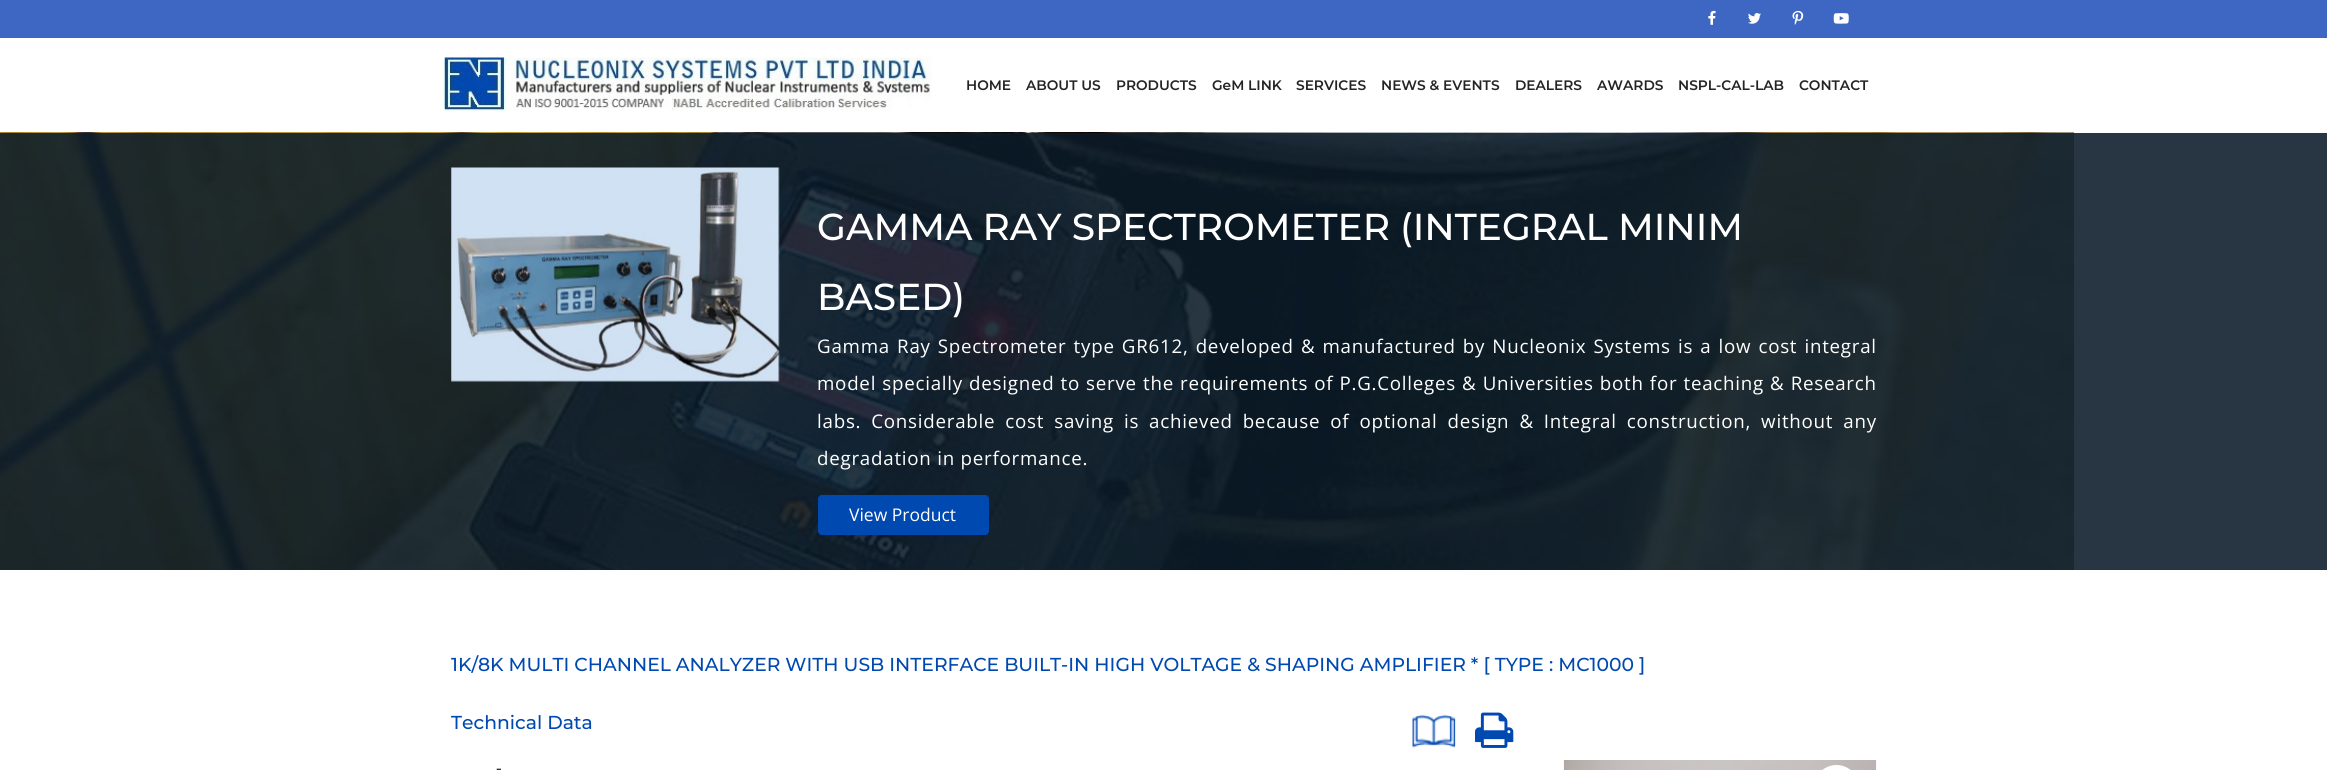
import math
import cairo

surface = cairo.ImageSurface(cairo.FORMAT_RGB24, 2327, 770)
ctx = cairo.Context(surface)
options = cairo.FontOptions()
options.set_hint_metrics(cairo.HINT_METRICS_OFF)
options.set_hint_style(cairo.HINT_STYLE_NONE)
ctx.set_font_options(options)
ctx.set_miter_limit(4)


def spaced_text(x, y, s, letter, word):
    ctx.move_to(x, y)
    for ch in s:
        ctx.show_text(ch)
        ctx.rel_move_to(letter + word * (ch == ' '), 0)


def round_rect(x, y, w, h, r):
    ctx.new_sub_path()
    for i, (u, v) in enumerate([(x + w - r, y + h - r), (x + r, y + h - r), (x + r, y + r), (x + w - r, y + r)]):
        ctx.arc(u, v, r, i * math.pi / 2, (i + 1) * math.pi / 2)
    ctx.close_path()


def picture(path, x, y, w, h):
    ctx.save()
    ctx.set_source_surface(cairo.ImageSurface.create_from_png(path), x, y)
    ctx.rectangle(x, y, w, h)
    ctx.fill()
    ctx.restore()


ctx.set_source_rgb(1, 1, 1)
ctx.paint()
ctx.set_source_rgb(0.153, 0.212, 0.259)
ctx.rectangle(2074, 133, 253, 437)
ctx.fill()
ctx.set_source_rgb(0.239, 0.404, 0.761)
ctx.rectangle(0, 0, 2327, 38)
ctx.fill()
picture("img1.png", 1708, 10, 8, 15)
picture("img2.png", 1748, 13, 13, 11)
picture("img3.png", 1792, 10, 12, 15)
picture("img4.png", 1833, 13, 16, 11)
picture("img5.png", 443, 57, 489, 55)
ctx.select_font_face("Montserrat SemiBold")
ctx.set_font_size(13.75)
ctx.set_source_rgb(0.141, 0.141, 0.141)
ctx.move_to(966, 90)
ctx.show_text("HOME")
ctx.move_to(1026, 90)
ctx.show_text("ABOUT US")
ctx.move_to(1116, 90)
ctx.show_text("PRODUCTS")
ctx.move_to(1212, 90)
ctx.show_text("GeM LINK")
ctx.move_to(1296, 90)
ctx.show_text("SERVICES")
ctx.move_to(1381, 90)
ctx.show_text("NEWS & EVENTS")
ctx.move_to(1515, 90)
ctx.show_text("DEALERS")
ctx.move_to(1597, 90)
ctx.show_text("AWARDS")
ctx.move_to(1678, 90)
ctx.show_text("NSPL-CAL-LAB")
ctx.move_to(1799, 90)
ctx.show_text("CONTACT")
picture("img6.png", 0, 132, 2074, 438)
picture("img7.png", 451, 167, 329, 215)
ctx.select_font_face("Montserrat Medium")
ctx.set_font_size(37.5)
ctx.set_source_rgb(1, 1, 1)
ctx.move_to(817, 240)
ctx.show_text("GAMMA RAY SPECTROMETER (INTEGRAL MINIM")
ctx.move_to(817, 310)
ctx.show_text("BASED)")
ctx.select_font_face("Open Sans")
ctx.set_font_size(18.75)
spaced_text(817, 353, "Gamma Ray Spectrometer type GR612, developed & manufactured by Nucleonix Systems is a low cost integral", 0.75, 1.5)
spaced_text(817, 390, "model specially designed to serve the requirements of P.G.Colleges & Universities both for teaching & Research", 0.75, 0.5)
spaced_text(817, 428, "labs. Considerable cost saving is achieved because of optional design & Integral construction, without any", 0.75, 4.4)
spaced_text(817, 465, "degradation in performance.", 0.75, 0)
ctx.set_source_rgb(0, 0.286, 0.69)
round_rect(818.5, 495.5, 170, 39, 3.5)
ctx.fill_preserve()
ctx.set_line_width(1)
ctx.stroke()
ctx.set_font_size(17.5)
ctx.set_source_rgb(1, 1, 1)
ctx.move_to(849, 521)
ctx.show_text("View Product")
ctx.select_font_face("Montserrat Medium")
ctx.set_font_size(18.75)
ctx.set_source_rgb(0, 0.286, 0.69)
ctx.move_to(451, 671)
ctx.show_text("1K/8K MULTI CHANNEL ANALYZER WITH USB INTERFACE BUILT-IN HIGH VOLTAGE & SHAPING AMPLIFIER * [ TYPE : MC1000 ]")
ctx.move_to(451, 729)
ctx.show_text("Technical Data")
picture("img8.png", 1412, 714, 44, 34)
picture("img9.png", 1475, 712, 39, 36)
ctx.select_font_face("Open Sans")
ctx.set_font_size(17.5)
ctx.set_source_rgb(0.141, 0.141, 0.141)
spaced_text(496, 774, "-", 1, 0)
picture("img10.png", 1563, 760, 314, 10)
ctx.set_source_rgb(1, 1, 1)
round_rect(1814, 765, 45, 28, 22.5)
ctx.fill()
surface.write_to_png("page.png")
